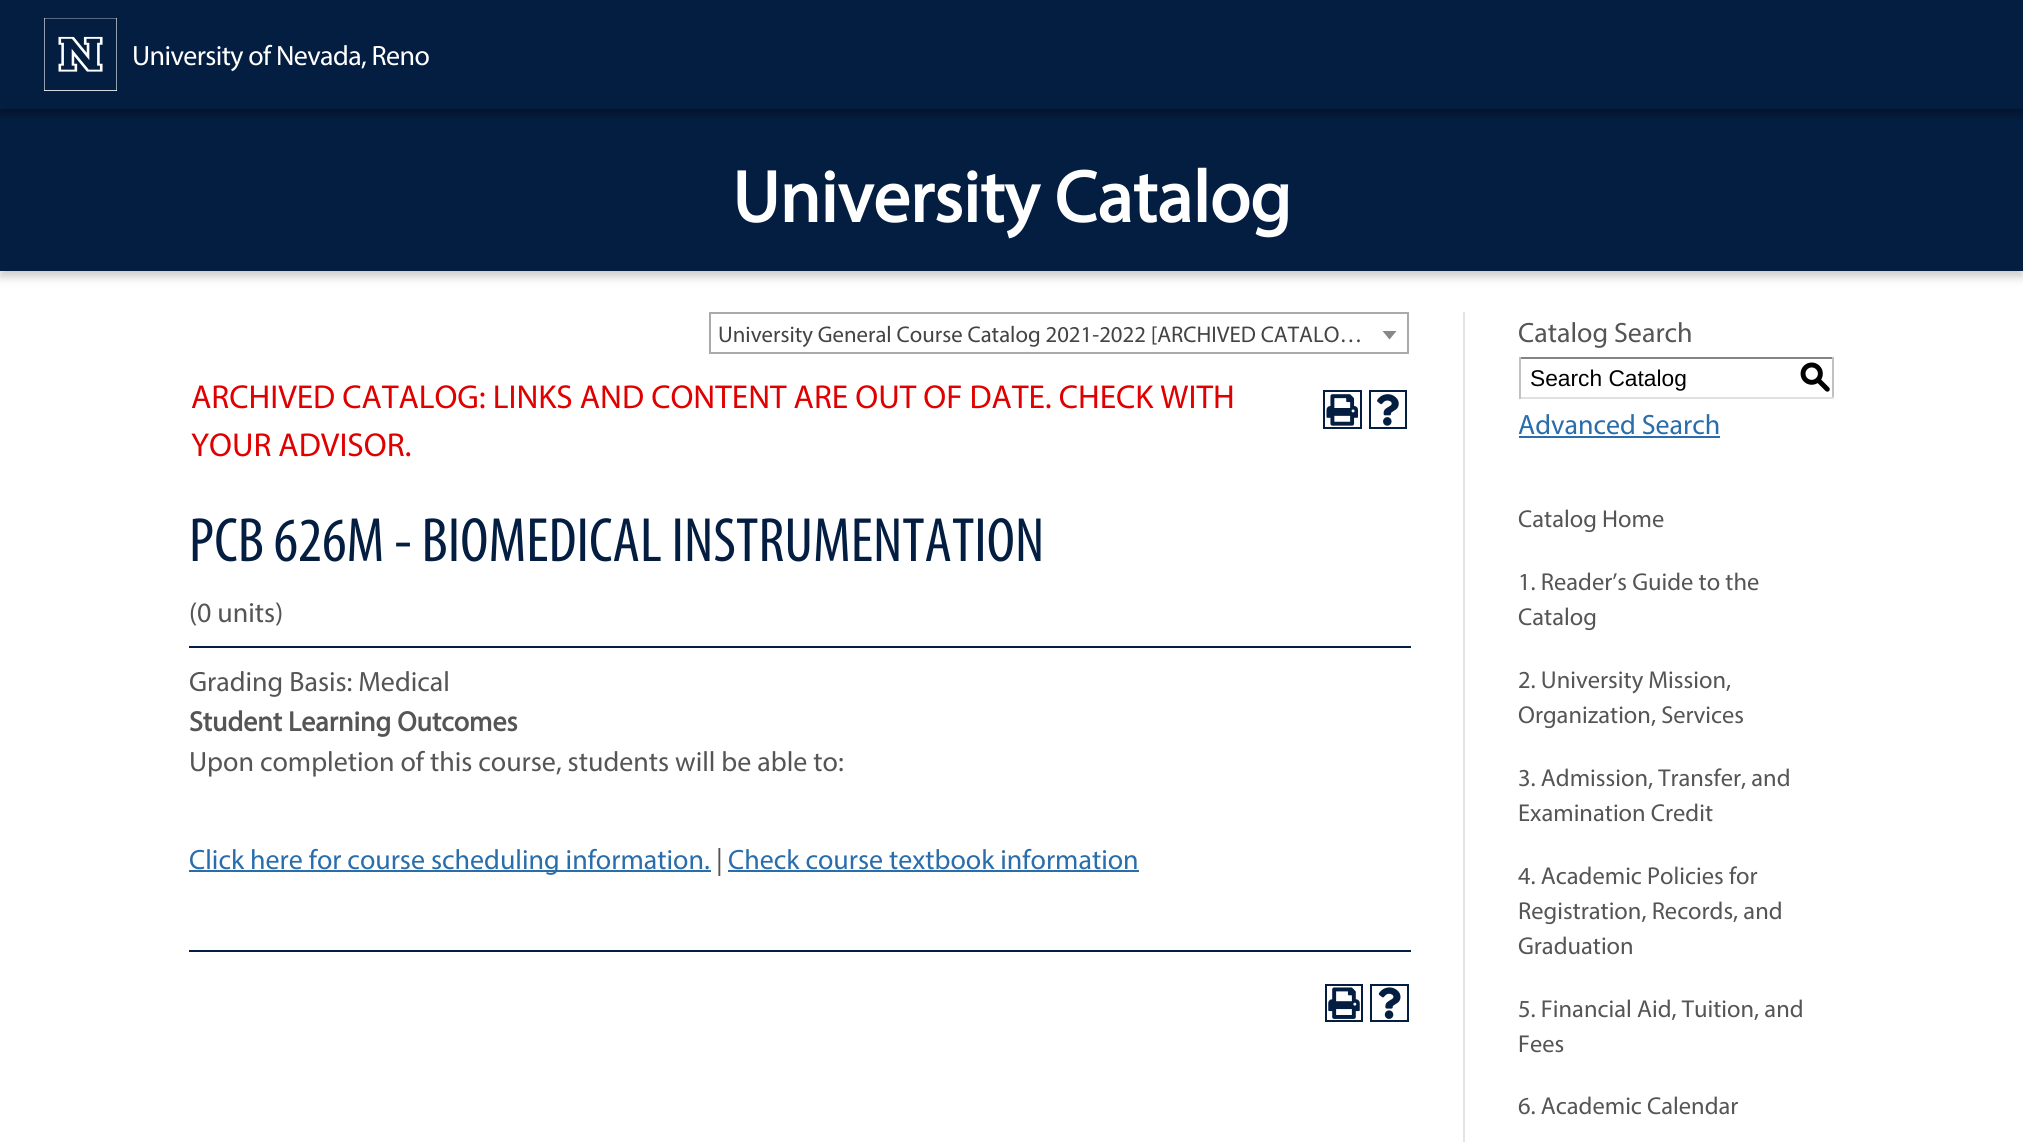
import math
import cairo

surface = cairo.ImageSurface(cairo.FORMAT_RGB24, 2023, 1142)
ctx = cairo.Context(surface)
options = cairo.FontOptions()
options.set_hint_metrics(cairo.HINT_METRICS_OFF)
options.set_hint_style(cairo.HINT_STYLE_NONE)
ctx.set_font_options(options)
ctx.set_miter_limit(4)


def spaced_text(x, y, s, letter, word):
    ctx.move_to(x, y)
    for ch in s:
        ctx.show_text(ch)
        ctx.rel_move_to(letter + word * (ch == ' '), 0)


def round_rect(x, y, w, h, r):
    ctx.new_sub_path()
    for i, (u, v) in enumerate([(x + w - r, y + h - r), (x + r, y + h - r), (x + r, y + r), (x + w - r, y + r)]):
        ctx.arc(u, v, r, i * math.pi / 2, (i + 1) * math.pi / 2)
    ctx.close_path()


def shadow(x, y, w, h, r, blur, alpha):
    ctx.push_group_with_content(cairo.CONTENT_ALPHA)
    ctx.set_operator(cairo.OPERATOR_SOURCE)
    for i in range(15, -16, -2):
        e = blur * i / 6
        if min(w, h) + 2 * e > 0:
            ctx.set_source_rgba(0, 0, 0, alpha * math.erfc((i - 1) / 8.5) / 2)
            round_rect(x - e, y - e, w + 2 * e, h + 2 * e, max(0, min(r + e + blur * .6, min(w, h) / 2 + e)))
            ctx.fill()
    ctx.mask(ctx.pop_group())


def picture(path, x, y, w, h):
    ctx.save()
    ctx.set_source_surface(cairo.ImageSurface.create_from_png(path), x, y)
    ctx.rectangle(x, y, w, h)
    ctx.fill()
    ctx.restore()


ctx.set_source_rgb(1, 1, 1)
ctx.paint()
ctx.set_source_rgb(0, 0, 0)
shadow(0, 114, 2023, 163, 0, 4.5, 0.2)
ctx.set_source_rgb(0.016, 0.118, 0.259)
ctx.rectangle(0, 109, 2023, 162)
ctx.fill()
ctx.set_source_rgb(0, 0, 0)
shadow(0, 5, 2023, 109, 0, 4.5, 0.2)
shadow(0, 5, 2023, 109, 0, 4.5, 0.2)
ctx.set_source_rgb(0.016, 0.118, 0.259)
ctx.rectangle(0, 0, 2023, 109)
ctx.fill()
picture("img1.png", 44, 18, 73, 73)
ctx.select_font_face("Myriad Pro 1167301")
ctx.set_font_size(28)
ctx.set_source_rgb(1, 1, 1)
spaced_text(132, 65, "University of Nevada, Reno", -0.6, 0)
ctx.select_font_face("Myriad Pro 1167301", cairo.FONT_SLANT_NORMAL, cairo.FONT_WEIGHT_BOLD)
ctx.set_font_size(73.5)
ctx.move_to(732, 222)
ctx.show_text("University Catalog")
ctx.select_font_face("Myriad Pro 1167301")
ctx.set_font_size(33.25)
ctx.set_source_rgb(0.878, 0, 0)
ctx.move_to(191, 408)
ctx.show_text("ARCHIVED CATALOG: LINKS AND CONTENT ARE OUT OF DATE. CHECK WITH")
ctx.rectangle(1324, 391, 37, 37)
ctx.set_source_rgb(0.016, 0.118, 0.259)
ctx.stroke()
picture("img2.png", 1326, 394, 32, 32)
ctx.rectangle(1370, 391, 36, 37)
ctx.stroke()
picture("img3.png", 1377, 394, 22, 32)
ctx.set_source_rgb(0.878, 0, 0)
ctx.move_to(191, 456)
ctx.show_text("YOUR ADVISOR.")
ctx.select_font_face("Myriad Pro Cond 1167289")
ctx.set_font_size(63)
ctx.set_source_rgb(0.016, 0.118, 0.259)
ctx.move_to(189, 561)
ctx.show_text("PCB 626M - BIOMEDICAL INSTRUMENTATION")
ctx.select_font_face("Myriad Pro 1167301")
ctx.set_font_size(28)
ctx.set_source_rgb(0.333, 0.333, 0.333)
ctx.move_to(189, 622)
ctx.show_text("(0 units)")
ctx.set_source_rgb(0.016, 0.118, 0.259)
ctx.rectangle(189, 646, 1222, 2)
ctx.fill()
ctx.set_source_rgb(0.333, 0.333, 0.333)
ctx.move_to(189, 691)
ctx.show_text("Grading Basis: Medical")
ctx.select_font_face("Myriad Pro 1167301", cairo.FONT_SLANT_NORMAL, cairo.FONT_WEIGHT_BOLD)
ctx.move_to(189, 731)
ctx.show_text("Student Learning Outcomes")
ctx.select_font_face("Myriad Pro 1167301")
ctx.move_to(189, 771)
ctx.show_text("Upon completion of this course, students will be able to:")
ctx.set_source_rgb(0.161, 0.427, 0.675)
ctx.rectangle(189, 870, 522, 2)
ctx.fill()
ctx.move_to(189, 869)
ctx.show_text("Click here for course scheduling information.")
ctx.set_source_rgb(0.333, 0.333, 0.333)
ctx.move_to(716, 869)
ctx.show_text("|")
ctx.set_source_rgb(0.161, 0.427, 0.675)
ctx.move_to(728, 869)
ctx.show_text("Check course textbook information")
ctx.rectangle(728, 870, 411, 2)
ctx.fill()
ctx.set_source_rgb(0.016, 0.118, 0.259)
ctx.rectangle(189, 950, 1222, 2)
ctx.fill()
ctx.rectangle(1326, 985, 36, 36)
ctx.stroke()
picture("img4.png", 1328, 987, 32, 32)
ctx.rectangle(1371, 985, 37, 36)
ctx.stroke()
picture("img5.png", 1378, 987, 23, 32)
ctx.set_source_rgb(0.89, 0.89, 0.89)
ctx.rectangle(1463, 312, 2, 830)
ctx.fill()
ctx.set_source_rgb(0.333, 0.333, 0.333)
ctx.move_to(1518, 342)
ctx.show_text("Catalog Search")
ctx.set_source_rgb(0.518, 0.518, 0.518)
ctx.rectangle(1519, 357, 315, 2)
ctx.fill()
ctx.set_source_rgb(0.757, 0.757, 0.757)
ctx.rectangle(1832, 357, 2, 42)
ctx.fill()
ctx.set_source_rgb(0.882, 0.882, 0.882)
ctx.rectangle(1519, 397, 315, 2)
ctx.fill()
ctx.set_source_rgb(0.757, 0.757, 0.757)
ctx.rectangle(1519, 357, 2, 42)
ctx.fill()
ctx.select_font_face("Liberation Sans")
ctx.set_font_size(22.75)
ctx.set_source_rgb(0, 0, 0)
ctx.move_to(1530, 386)
ctx.show_text("Search Catalog")
ctx.select_font_face("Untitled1 Medium")
ctx.set_font_size(32)
ctx.move_to(1799, 387)
ctx.show_text("S")
ctx.select_font_face("Myriad Pro 1167301")
ctx.set_font_size(28)
ctx.set_source_rgb(0.161, 0.427, 0.675)
ctx.move_to(1518, 434)
ctx.show_text("Advanced Search")
ctx.rectangle(1519, 436, 201, 2)
ctx.fill()
ctx.set_font_size(24.5)
ctx.set_source_rgb(0.333, 0.333, 0.333)
ctx.move_to(1518, 527)
ctx.show_text("Catalog Home")
ctx.move_to(1518, 590)
ctx.show_text("1. Reader’s Guide to the")
ctx.move_to(1518, 625)
ctx.show_text("Catalog")
ctx.move_to(1518, 688)
ctx.show_text("2. University Mission,")
ctx.move_to(1518, 723)
ctx.show_text("Organization, Services")
ctx.move_to(1518, 786)
ctx.show_text("3. Admission, Transfer, and")
ctx.move_to(1518, 821)
ctx.show_text("Examination Credit")
ctx.move_to(1518, 884)
ctx.show_text("4. Academic Policies for")
ctx.move_to(1518, 919)
ctx.show_text("Registration, Records, and")
ctx.move_to(1518, 954)
ctx.show_text("Graduation")
ctx.move_to(1518, 1017)
ctx.show_text("5. Financial Aid, Tuition, and")
ctx.move_to(1518, 1052)
ctx.show_text("Fees")
ctx.move_to(1518, 1114)
ctx.show_text("6. Academic Calendar")
ctx.rectangle(710, 313, 698, 40)
ctx.set_source_rgb(0.667, 0.667, 0.667)
ctx.stroke()
ctx.set_font_size(22.75)
ctx.set_source_rgb(0.267, 0.267, 0.267)
ctx.move_to(718, 342)
ctx.show_text("University General Course Catalog 2021-2022 [ARCHIVED CATALO…")
ctx.set_source_rgb(0.533, 0.533, 0.533)
ctx.new_path()
ctx.move_to(1382.5, 331)
ctx.line_to(1396.5, 331)
ctx.line_to(1389.5, 339.5)
ctx.close_path()
ctx.fill()
surface.write_to_png("page.png")
